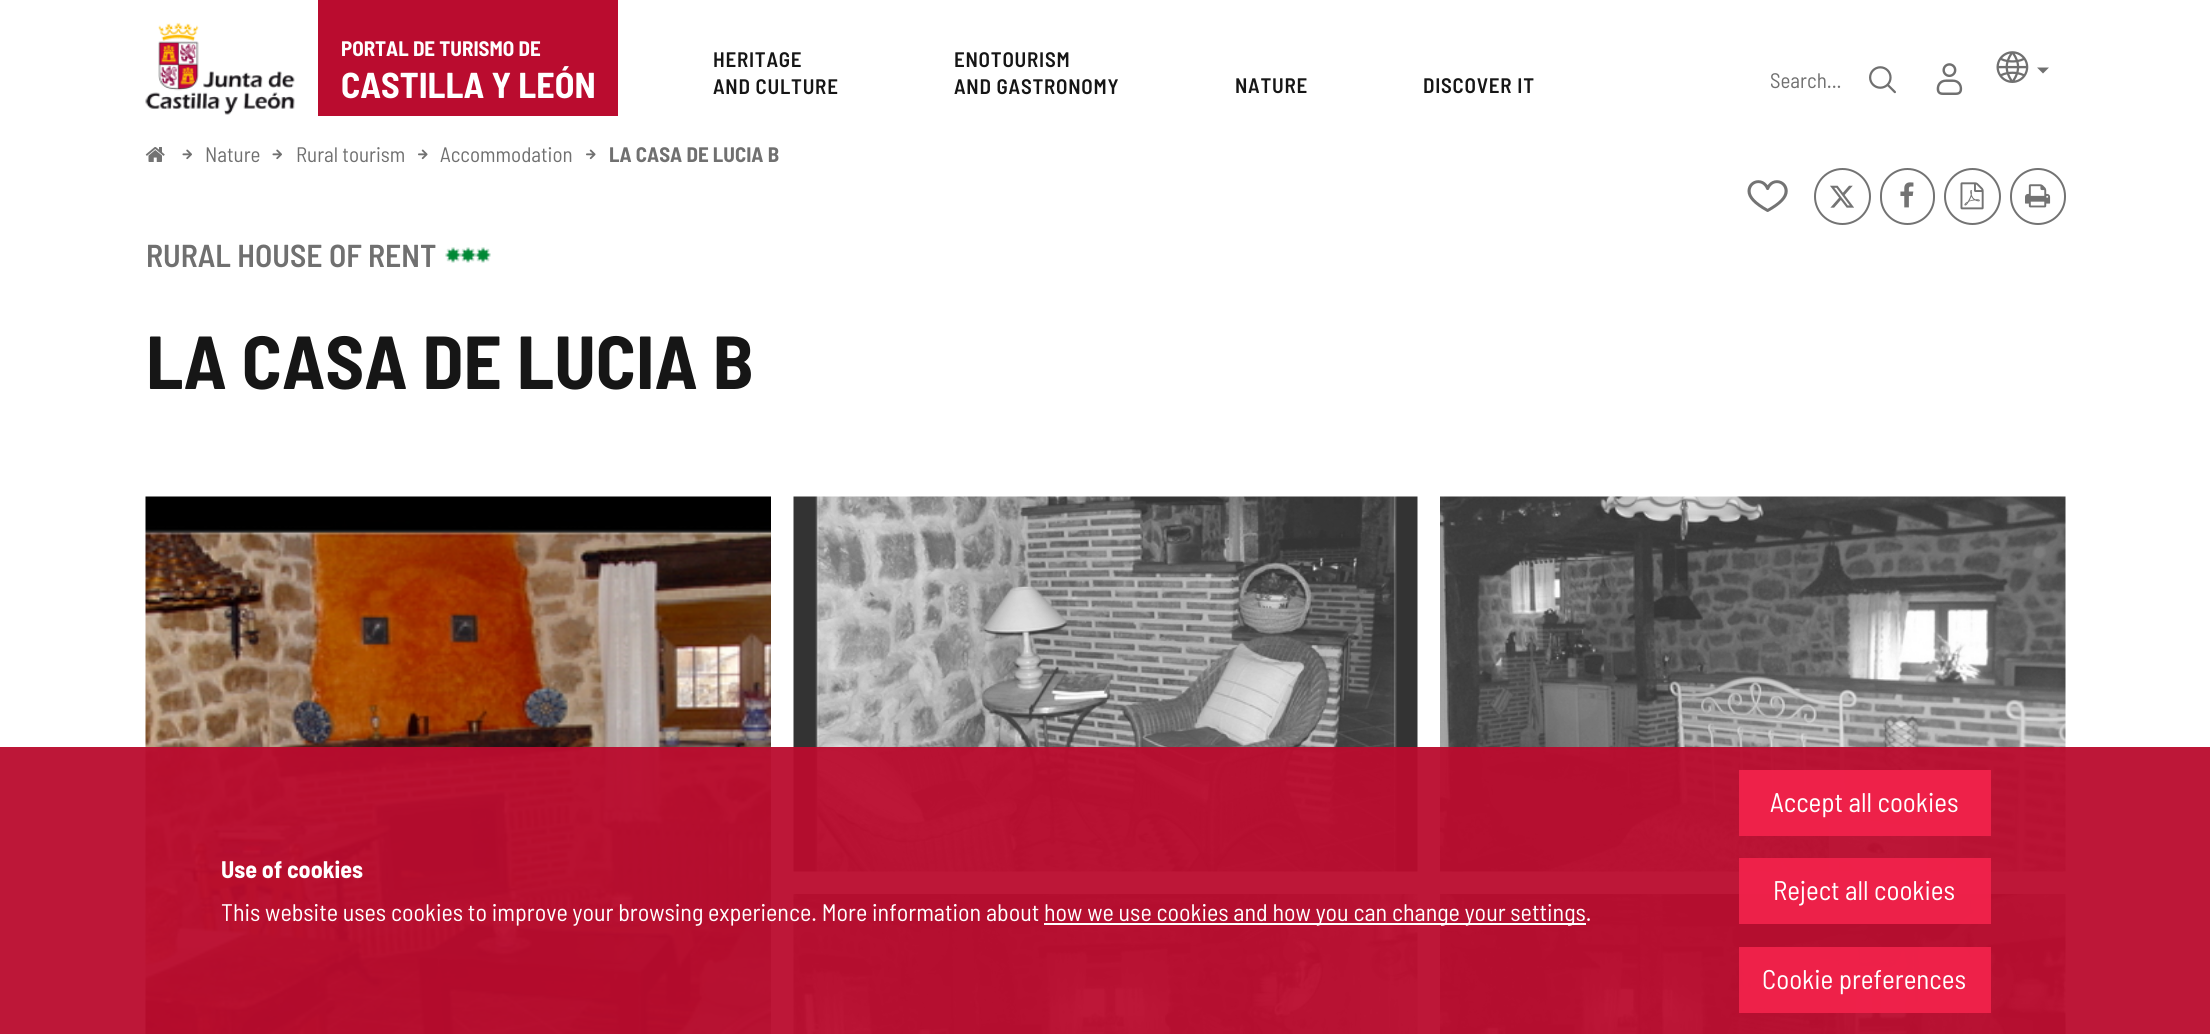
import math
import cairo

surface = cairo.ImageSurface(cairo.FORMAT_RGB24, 2210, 1034)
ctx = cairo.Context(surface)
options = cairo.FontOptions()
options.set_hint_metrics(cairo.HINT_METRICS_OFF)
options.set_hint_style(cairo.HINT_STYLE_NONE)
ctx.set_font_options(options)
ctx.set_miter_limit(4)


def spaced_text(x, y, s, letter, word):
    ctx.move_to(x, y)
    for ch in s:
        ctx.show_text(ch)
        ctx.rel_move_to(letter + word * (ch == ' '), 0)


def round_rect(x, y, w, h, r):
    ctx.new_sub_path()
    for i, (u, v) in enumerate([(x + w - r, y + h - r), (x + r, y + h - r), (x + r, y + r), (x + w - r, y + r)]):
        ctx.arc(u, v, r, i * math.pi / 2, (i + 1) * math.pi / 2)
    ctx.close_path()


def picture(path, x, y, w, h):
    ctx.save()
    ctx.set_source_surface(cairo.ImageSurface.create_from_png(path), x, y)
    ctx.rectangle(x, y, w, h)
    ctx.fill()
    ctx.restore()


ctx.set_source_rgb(1, 1, 1)
ctx.paint()
picture("img1.png", 145, 22, 150, 93)
ctx.set_source_rgb(0.729, 0.047, 0.184)
ctx.rectangle(318, 0, 300, 116)
ctx.fill()
ctx.select_font_face("Barlow Semi Condensed", cairo.FONT_SLANT_NORMAL, cairo.FONT_WEIGHT_BOLD)
ctx.set_font_size(21)
ctx.set_source_rgb(1, 1, 1)
ctx.move_to(341, 56)
ctx.show_text("PORTAL DE TURISMO DE")
ctx.set_font_size(36)
ctx.move_to(341, 98)
ctx.show_text("CASTILLA Y LEÓN")
ctx.select_font_face("Barlow Semi Condensed SemiBold")
ctx.set_font_size(21)
ctx.set_source_rgb(0.086, 0.086, 0.086)
spaced_text(713, 67, "HERITAGE", 0.75, 0)
spaced_text(713, 94, "AND CULTURE", 0.75, 0)
spaced_text(954, 67, "ENOTOURISM", 0.75, 0)
spaced_text(954, 94, "AND GASTRONOMY", 0.75, 0)
spaced_text(1235, 93, "NATURE", 0.75, 0)
spaced_text(1423, 93, "DISCOVER IT", 0.75, 0)
ctx.select_font_face("Barlow Semi Condensed")
ctx.set_source_rgb(0.439, 0.439, 0.439)
ctx.move_to(1770, 88)
ctx.show_text("Search...")
picture("img2.png", 1869, 66, 27, 28)
picture("img3.png", 1936, 63, 27, 32)
picture("img4.png", 1996, 51, 33, 32)
ctx.new_path()
ctx.move_to(2037, 67.5)
ctx.line_to(2049, 67.5)
ctx.line_to(2043, 73.5)
ctx.close_path()
ctx.fill()
picture("img5.png", 145, 147, 20, 15)
picture("img6.png", 182, 149, 10, 11)
ctx.move_to(205, 162)
ctx.show_text("Nature")
picture("img6.png", 272, 149, 10, 11)
ctx.move_to(296, 162)
ctx.show_text("Rural tourism")
picture("img7.png", 418, 149, 10, 11)
ctx.move_to(440, 162)
ctx.show_text("Accommodation")
picture("img7.png", 586, 149, 10, 11)
ctx.select_font_face("Barlow Semi Condensed", cairo.FONT_SLANT_NORMAL, cairo.FONT_WEIGHT_BOLD)
ctx.move_to(609, 162)
ctx.show_text("LA CASA DE LUCIA B")
picture("img8.png", 1747, 180, 41, 32)
ctx.arc(1842.5, 196.5, 27.5, 0, 2 * math.pi)
ctx.set_source_rgb(0.451, 0.451, 0.451)
ctx.stroke()
picture("img9.png", 1830, 185, 24, 23)
round_rect(1881, 169, 53, 55, 26.5)
ctx.stroke()
picture("img10.png", 1900, 182, 14, 26)
ctx.arc(1972.5, 196.5, 27.5, 0, 2 * math.pi)
ctx.stroke()
picture("img11.png", 1960, 182, 24, 28)
round_rect(2011, 169, 54, 55, 27)
ctx.stroke()
picture("img12.png", 2025, 184, 26, 24)
ctx.select_font_face("Barlow Semi Condensed SemiBold")
ctx.set_font_size(31.75)
ctx.set_source_rgb(0.439, 0.439, 0.439)
ctx.move_to(146, 267)
ctx.show_text("RURAL HOUSE OF RENT")
picture("img13.png", 445, 247, 46, 16)
picture("img14.png", 145, 496, 626, 538)
picture("img15.png", 793, 496, 625, 376)
picture("img16.png", 1440, 496, 626, 376)
picture("img17.png", 793, 894, 625, 140)
picture("img18.png", 1440, 894, 626, 140)
ctx.select_font_face("Barlow Semi Condensed", cairo.FONT_SLANT_NORMAL, cairo.FONT_WEIGHT_BOLD)
ctx.set_font_size(75)
ctx.set_source_rgb(0.086, 0.086, 0.086)
ctx.move_to(146, 389)
ctx.show_text("LA CASA DE LUCIA B")
ctx.set_source_rgba(0.729, 0.047, 0.184, 0.95)
ctx.rectangle(0, 747, 2210, 287)
ctx.fill()
ctx.set_font_size(24)
ctx.set_source_rgb(1, 1, 1)
ctx.move_to(221, 878)
ctx.show_text("Use of cookies")
ctx.select_font_face("Barlow Semi Condensed")
ctx.move_to(221, 921)
ctx.show_text("This website uses cookies to improve your browsing experience. More information about")
ctx.rectangle(1044, 923, 542, 2)
ctx.fill()
ctx.move_to(1044, 921)
ctx.show_text("how we use cookies and how you can change your settings.")
ctx.set_source_rgba(0.945, 0.133, 0.294, 0.95)
ctx.rectangle(1739, 770, 252, 66)
ctx.fill()
ctx.set_font_size(27)
ctx.set_source_rgb(1, 1, 1)
ctx.move_to(1770, 812)
ctx.show_text("Accept all cookies")
ctx.set_source_rgba(0.945, 0.133, 0.294, 0.95)
ctx.rectangle(1739, 858, 252, 66)
ctx.fill()
ctx.set_source_rgb(1, 1, 1)
ctx.move_to(1773, 900)
ctx.show_text("Reject all cookies")
ctx.set_source_rgba(0.945, 0.133, 0.294, 0.95)
ctx.rectangle(1739, 947, 252, 66)
ctx.fill()
ctx.set_source_rgb(1, 1, 1)
ctx.move_to(1762, 989)
ctx.show_text("Cookie preferences")
surface.write_to_png("page.png")
